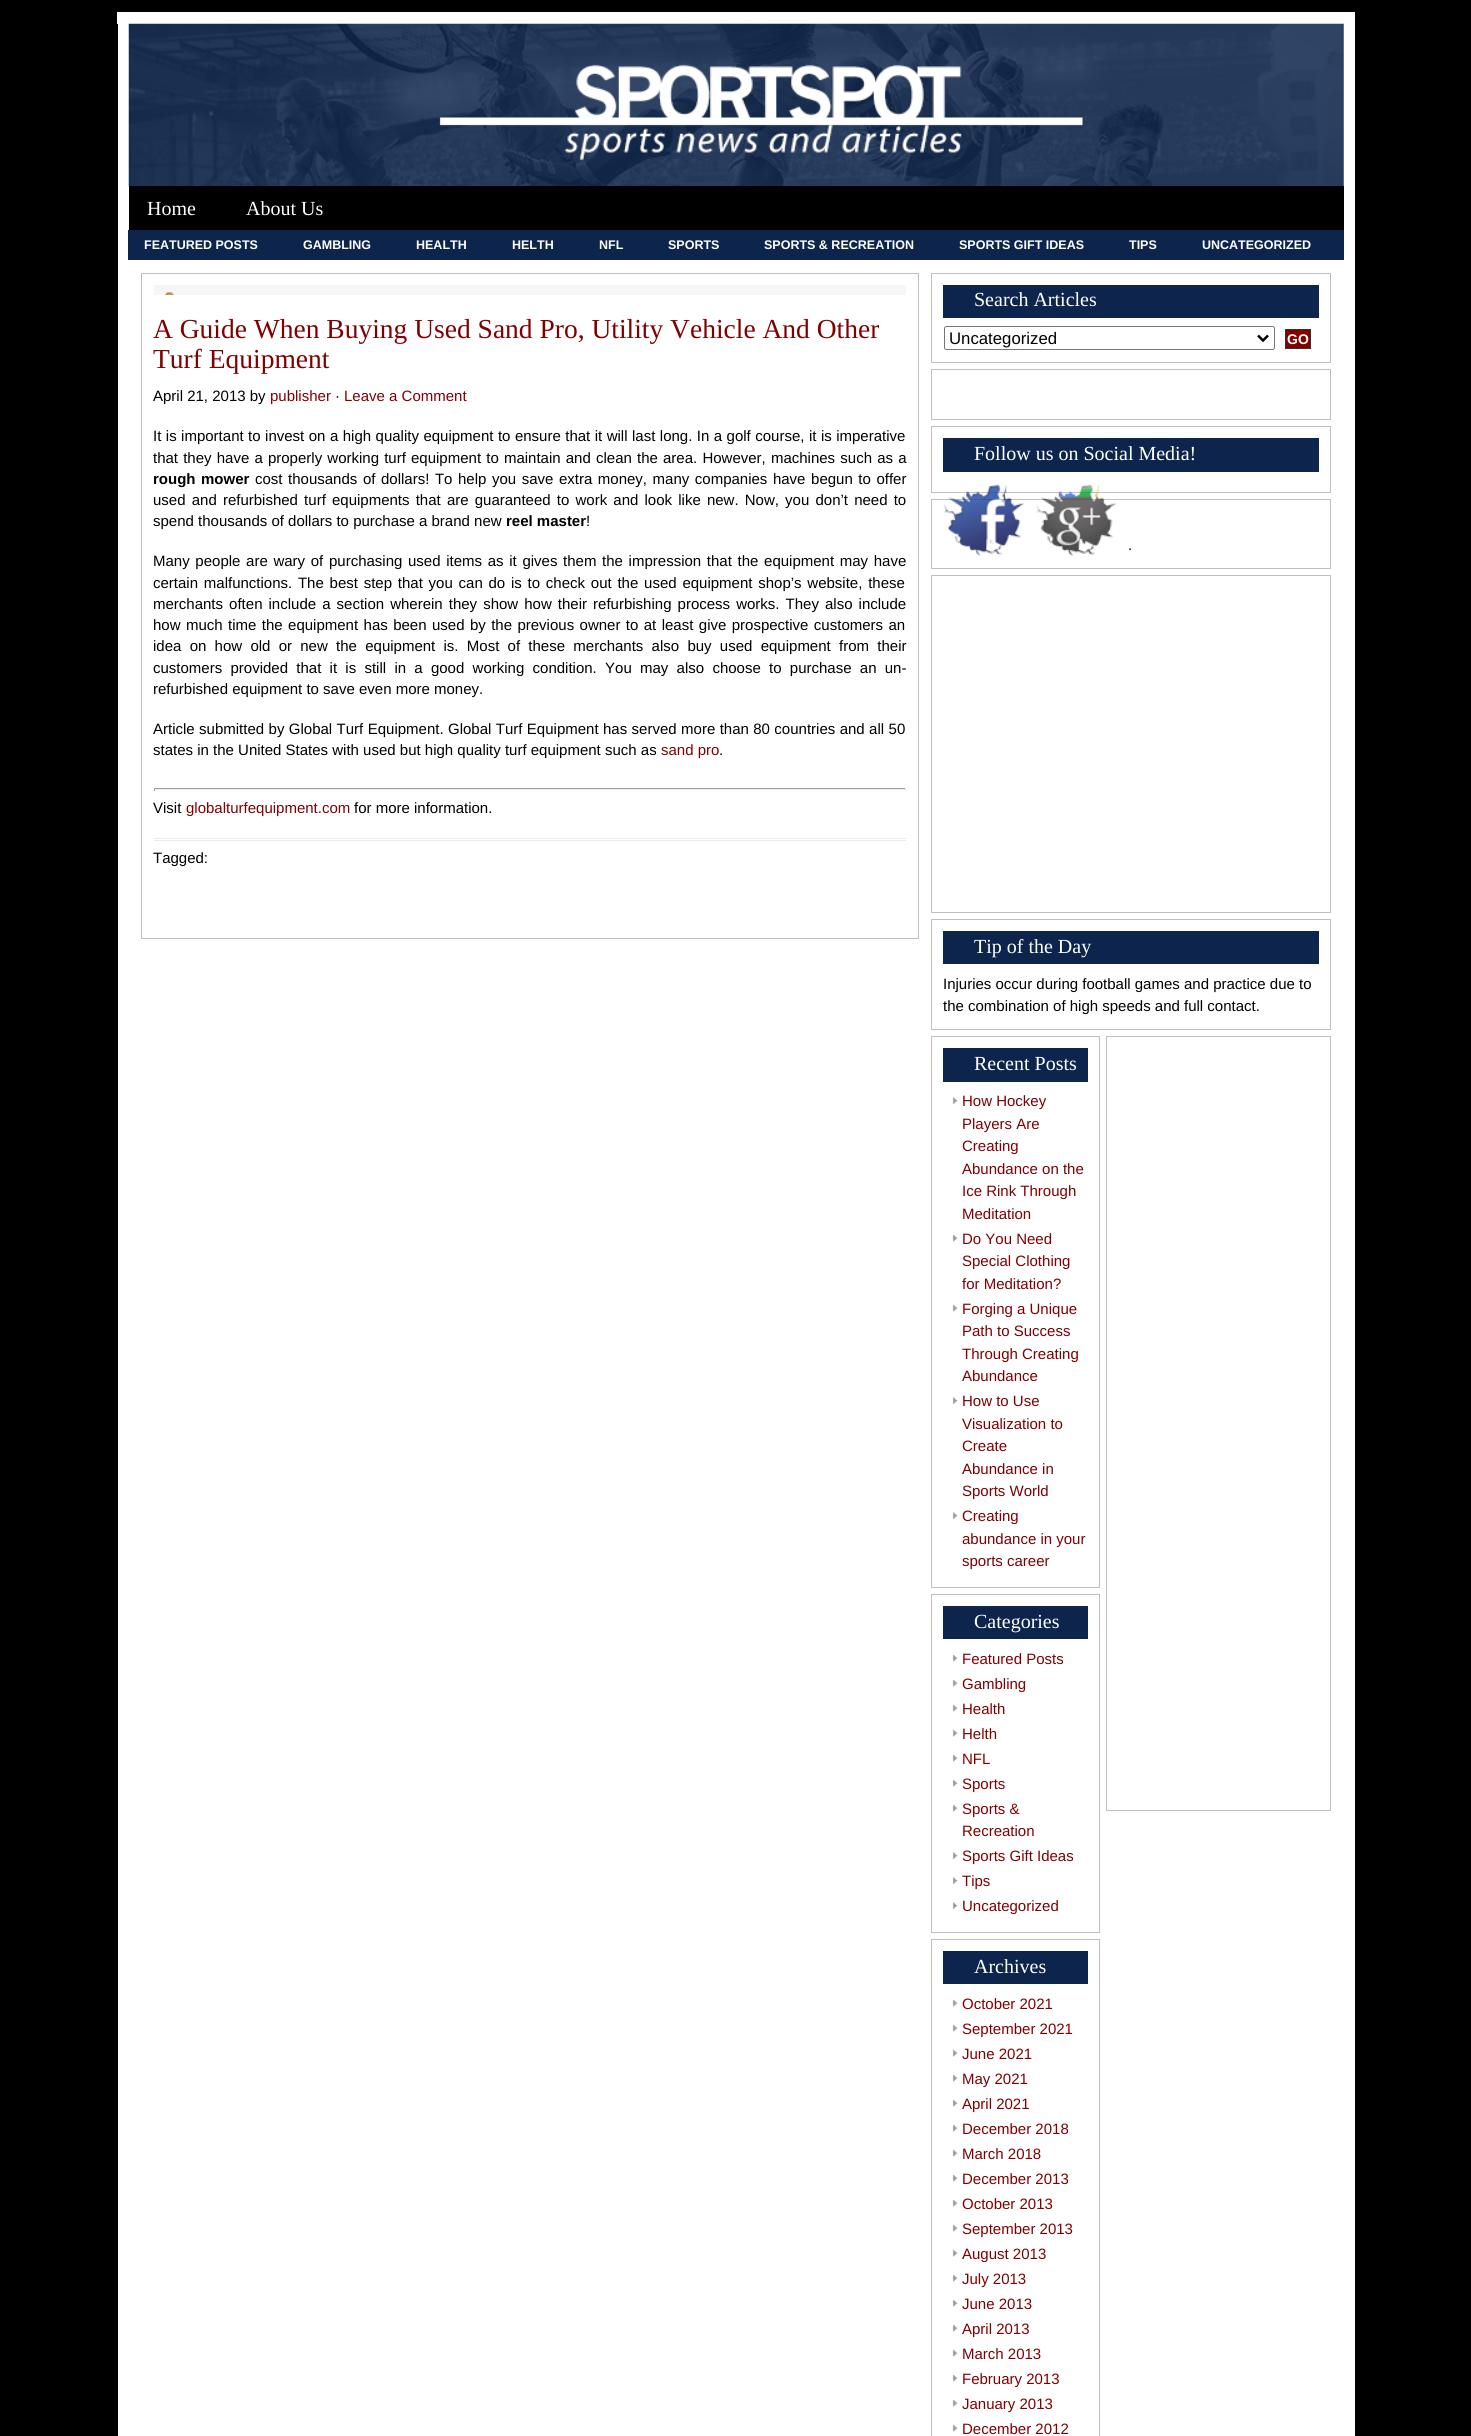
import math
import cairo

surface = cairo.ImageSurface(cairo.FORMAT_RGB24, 1471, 2436)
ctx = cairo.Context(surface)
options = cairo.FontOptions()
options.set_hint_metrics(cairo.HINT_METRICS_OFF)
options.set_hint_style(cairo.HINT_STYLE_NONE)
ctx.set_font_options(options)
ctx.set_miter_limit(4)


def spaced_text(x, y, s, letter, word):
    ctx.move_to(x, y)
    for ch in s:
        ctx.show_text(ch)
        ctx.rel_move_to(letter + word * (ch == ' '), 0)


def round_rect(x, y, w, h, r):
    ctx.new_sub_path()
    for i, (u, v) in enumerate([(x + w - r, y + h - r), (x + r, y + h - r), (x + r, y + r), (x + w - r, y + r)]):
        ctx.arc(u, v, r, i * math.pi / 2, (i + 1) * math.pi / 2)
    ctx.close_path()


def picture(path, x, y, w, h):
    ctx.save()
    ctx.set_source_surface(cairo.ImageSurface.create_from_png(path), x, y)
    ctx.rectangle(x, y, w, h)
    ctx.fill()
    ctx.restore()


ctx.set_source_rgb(0, 0, 0)
ctx.paint()
ctx.set_source_rgb(1, 1, 1)
ctx.rectangle(118, 24, 1237, 2412)
ctx.fill()
ctx.rectangle(117, 12, 1238, 12)
ctx.fill()
picture("img1.png", 128, 23, 1216, 164)
ctx.set_source_rgb(0, 0, 0)
ctx.rectangle(129, 186, 1215, 44)
ctx.fill()
ctx.select_font_face("Liberation Serif")
ctx.set_font_size(20)
ctx.set_source_rgb(1, 1, 1)
ctx.move_to(147, 215)
ctx.show_text("Home")
ctx.move_to(246, 215)
ctx.show_text("About Us")
ctx.set_source_rgb(0.051, 0.145, 0.298)
ctx.rectangle(128, 230, 1216, 30)
ctx.fill()
ctx.select_font_face("Liberation Sans", cairo.FONT_SLANT_NORMAL, cairo.FONT_WEIGHT_BOLD)
ctx.set_font_size(12.5)
ctx.set_source_rgb(1, 1, 1)
ctx.move_to(144, 249)
ctx.show_text("FEATURED POSTS")
ctx.move_to(303, 249)
ctx.show_text("GAMBLING")
ctx.move_to(416, 249)
ctx.show_text("HEALTH")
ctx.move_to(512, 249)
ctx.show_text("HELTH")
ctx.move_to(599, 249)
ctx.show_text("NFL")
ctx.move_to(668, 249)
ctx.show_text("SPORTS")
ctx.move_to(764, 249)
ctx.show_text("SPORTS & RECREATION")
ctx.move_to(959, 249)
ctx.show_text("SPORTS GIFT IDEAS")
ctx.move_to(1129, 249)
ctx.show_text("TIPS")
ctx.move_to(1202, 249)
ctx.show_text("UNCATEGORIZED")
ctx.rectangle(141.5, 273.5, 777, 665)
ctx.set_source_rgb(0.753, 0.753, 0.753)
ctx.set_line_width(1)
ctx.stroke()
ctx.set_source_rgb(0.961, 0.961, 0.961)
ctx.rectangle(154, 285, 752, 10)
ctx.fill()
picture("img2.png", 165, 292, 9, 3)
ctx.select_font_face("Liberation Serif")
ctx.set_font_size(27.5)
ctx.set_source_rgb(0.502, 0, 0)
ctx.move_to(153, 338)
ctx.show_text("A Guide When Buying Used Sand Pro, Utility Vehicle And Other")
ctx.move_to(153, 368)
ctx.show_text("Turf Equipment")
ctx.select_font_face("Liberation Sans")
ctx.set_font_size(15)
ctx.set_source_rgb(0, 0, 0)
ctx.move_to(153, 401)
ctx.show_text("April 21, 2013 by")
ctx.set_source_rgb(0.502, 0, 0)
ctx.move_to(270, 401)
ctx.show_text("publisher")
ctx.set_source_rgb(0, 0, 0)
ctx.move_to(335, 401)
ctx.show_text("·")
ctx.set_source_rgb(0.502, 0, 0)
ctx.move_to(344, 401)
ctx.show_text("Leave a Comment")
ctx.set_source_rgb(0, 0, 0)
spaced_text(153, 441, "It is important to invest on a high quality equipment to ensure that it will last long. In a golf course, it is imperative", 0, 0.3)
spaced_text(153, 463, "that they have a properly working turf equipment to maintain and clean the area. However, machines such as a", 0, 1)
ctx.select_font_face("Liberation Sans", cairo.FONT_SLANT_NORMAL, cairo.FONT_WEIGHT_BOLD)
ctx.move_to(153, 484)
ctx.show_text("rough")
ctx.move_to(201, 484)
ctx.show_text("mower")
ctx.select_font_face("Liberation Sans")
spaced_text(255, 484, "cost thousands of dollars! To help you save extra money, many companies have begun to offer", 0, 1.4)
spaced_text(153, 505, "used and refurbished turf equipments that are guaranteed to work and look like new. Now, you don’t need to", 0, 2)
ctx.move_to(153, 526)
ctx.show_text("spend thousands of dollars to purchase a brand new")
ctx.select_font_face("Liberation Sans", cairo.FONT_SLANT_NORMAL, cairo.FONT_WEIGHT_BOLD)
ctx.move_to(506, 526)
ctx.show_text("reel master")
ctx.select_font_face("Liberation Sans")
ctx.move_to(586, 526)
ctx.show_text("!")
spaced_text(153, 566, "Many people are wary of purchasing used items as it gives them the impression that the equipment may have", 0, 1.5)
spaced_text(153, 588, "certain malfunctions. The best step that you can do is to check out the used equipment shop’s website, these", 0, 1.6)
spaced_text(153, 609, "merchants often include a section wherein they show how their refurbishing process works. They also include", 0, 1.9)
spaced_text(153, 630, "how much time the equipment has been used by the previous owner to at least give prospective customers an", 0, 1.25)
spaced_text(153, 651, "idea on how old or new the equipment is. Most of these merchants also buy used equipment from their", 0, 4.1)
spaced_text(153, 673, "customers provided that it is still in a good working condition. You may also choose to purchase an un-", 0, 4.1)
ctx.move_to(153, 694)
ctx.show_text("refurbished equipment to save even more money.")
spaced_text(153, 734, "Article submitted by Global Turf Equipment. Global Turf Equipment has served more than 80 countries and all 50", 0, 0.25)
ctx.move_to(153, 755)
ctx.show_text("states in the United States with used but high quality turf equipment such as")
ctx.set_source_rgb(0.502, 0, 0)
ctx.move_to(661, 755)
ctx.show_text("sand pro")
ctx.set_source_rgb(0, 0, 0)
ctx.move_to(719, 755)
ctx.show_text(".")
ctx.set_source_rgb(0.624, 0.624, 0.624)
ctx.rectangle(154, 788, 752, 1)
ctx.fill()
ctx.set_source_rgb(0.933, 0.933, 0.933)
ctx.rectangle(905, 788, 1, 3)
ctx.fill()
ctx.rectangle(154, 789, 752, 1)
ctx.fill()
ctx.set_source_rgb(0.624, 0.624, 0.624)
ctx.rectangle(154, 788, 1, 3)
ctx.fill()
ctx.set_source_rgb(0, 0, 0)
ctx.move_to(153, 813)
ctx.show_text("Visit")
ctx.set_source_rgb(0.502, 0, 0)
ctx.move_to(186, 813)
ctx.show_text("globalturfequipment.com")
ctx.set_source_rgb(0, 0, 0)
ctx.move_to(354, 813)
ctx.show_text("for more information.")
ctx.set_source_rgb(0.918, 0.918, 0.918)
ctx.rectangle(154, 838, 752, 1)
ctx.fill()
ctx.rectangle(154, 840, 752, 1)
ctx.fill()
ctx.set_source_rgb(0, 0, 0)
ctx.move_to(153, 863)
ctx.show_text("Tagged:")
ctx.rectangle(931.5, 273.5, 399, 89)
ctx.set_source_rgb(0.753, 0.753, 0.753)
ctx.stroke()
ctx.set_source_rgb(0.051, 0.145, 0.298)
ctx.rectangle(943, 285, 376, 33)
ctx.fill()
ctx.select_font_face("Liberation Serif")
ctx.set_font_size(20)
ctx.set_source_rgb(1, 1, 1)
ctx.move_to(974, 306)
ctx.show_text("Search Articles")
round_rect(944.5, 326.5, 330, 23, 2)
ctx.set_source_rgb(0.463, 0.463, 0.463)
ctx.stroke()
ctx.new_path()
ctx.move_to(1258, 335.5)
ctx.line_to(1263, 340.5)
ctx.line_to(1268, 335.5)
ctx.set_source_rgb(0, 0, 0)
ctx.set_line_width(2.5)
ctx.stroke()
ctx.select_font_face("Liberation Sans")
ctx.set_font_size(16.75)
ctx.move_to(949, 344)
ctx.show_text("Uncategorized")
ctx.set_source_rgb(0.502, 0, 0)
ctx.rectangle(1285.5, 329.5, 25, 19)
ctx.fill_preserve()
ctx.set_source_rgb(0.2, 0.2, 0.2)
ctx.set_line_width(1)
ctx.stroke()
ctx.select_font_face("Liberation Sans", cairo.FONT_SLANT_NORMAL, cairo.FONT_WEIGHT_BOLD)
ctx.set_font_size(14)
ctx.set_source_rgb(1, 1, 1)
ctx.move_to(1287, 344)
ctx.show_text("GO")
ctx.rectangle(931.5, 369.5, 399, 50)
ctx.set_source_rgb(0.753, 0.753, 0.753)
ctx.stroke()
ctx.rectangle(931.5, 426.5, 399, 66)
ctx.stroke()
ctx.set_source_rgb(0.051, 0.145, 0.298)
ctx.rectangle(943, 438, 376, 34)
ctx.fill()
ctx.select_font_face("Liberation Serif")
ctx.set_font_size(20)
ctx.set_source_rgb(1, 1, 1)
ctx.move_to(974, 460)
ctx.show_text("Follow us on Social Media!")
ctx.rectangle(931.5, 499.5, 399, 69)
ctx.set_source_rgb(0.753, 0.753, 0.753)
ctx.stroke()
picture("img3.png", 943, 484, 81, 73)
picture("img4.png", 1036, 484, 81, 73)
ctx.select_font_face("Liberation Sans")
ctx.set_font_size(15)
ctx.set_source_rgb(0, 0, 0)
ctx.move_to(1128, 550)
ctx.show_text(".")
ctx.rectangle(931.5, 575.5, 399, 337)
ctx.set_source_rgb(0.753, 0.753, 0.753)
ctx.stroke()
ctx.rectangle(931.5, 919.5, 399, 110)
ctx.stroke()
ctx.set_source_rgb(0.051, 0.145, 0.298)
ctx.rectangle(943, 931, 376, 33)
ctx.fill()
ctx.select_font_face("Liberation Serif")
ctx.set_font_size(20)
ctx.set_source_rgb(1, 1, 1)
ctx.move_to(974, 953)
ctx.show_text("Tip of the Day")
ctx.select_font_face("Liberation Sans")
ctx.set_font_size(15)
ctx.set_source_rgb(0, 0, 0)
ctx.move_to(943, 989)
ctx.show_text("Injuries occur during football games and practice due to")
ctx.move_to(943, 1011)
ctx.show_text("the combination of high speeds and full contact.")
ctx.rectangle(931.5, 1036.5, 168, 551)
ctx.set_source_rgb(0.753, 0.753, 0.753)
ctx.stroke()
ctx.set_source_rgb(0.051, 0.145, 0.298)
ctx.rectangle(943, 1048, 145, 34)
ctx.fill()
ctx.select_font_face("Liberation Serif")
ctx.set_font_size(20)
ctx.set_source_rgb(1, 1, 1)
ctx.move_to(974, 1070)
ctx.show_text("Recent Posts")
picture("img5.png", 952, 1097, 6, 7)
ctx.select_font_face("Liberation Sans")
ctx.set_font_size(15)
ctx.set_source_rgb(0.502, 0, 0)
ctx.move_to(962, 1106)
ctx.show_text("How Hockey")
ctx.move_to(962, 1129)
ctx.show_text("Players Are")
ctx.move_to(962, 1151)
ctx.show_text("Creating")
ctx.move_to(962, 1174)
ctx.show_text("Abundance on the")
ctx.move_to(962, 1196)
ctx.show_text("Ice Rink Through")
ctx.move_to(962, 1219)
ctx.show_text("Meditation")
picture("img6.png", 952, 1234, 6, 8)
ctx.move_to(962, 1244)
ctx.show_text("Do You Need")
ctx.move_to(962, 1266)
ctx.show_text("Special Clothing")
ctx.move_to(962, 1289)
ctx.show_text("for Meditation?")
picture("img6.png", 952, 1304, 6, 8)
ctx.move_to(962, 1314)
ctx.show_text("Forging a Unique")
ctx.move_to(962, 1336)
ctx.show_text("Path to Success")
ctx.move_to(962, 1359)
ctx.show_text("Through Creating")
ctx.move_to(962, 1381)
ctx.show_text("Abundance")
picture("img5.png", 952, 1397, 6, 7)
ctx.move_to(962, 1406)
ctx.show_text("How to Use")
ctx.move_to(962, 1429)
ctx.show_text("Visualization to")
ctx.move_to(962, 1451)
ctx.show_text("Create")
ctx.move_to(962, 1474)
ctx.show_text("Abundance in")
ctx.move_to(962, 1496)
ctx.show_text("Sports World")
picture("img5.png", 952, 1512, 6, 7)
ctx.move_to(962, 1521)
ctx.show_text("Creating")
ctx.move_to(962, 1544)
ctx.show_text("abundance in your")
ctx.move_to(962, 1566)
ctx.show_text("sports career")
ctx.rectangle(931.5, 1594.5, 168, 338)
ctx.set_source_rgb(0.753, 0.753, 0.753)
ctx.stroke()
ctx.set_source_rgb(0.051, 0.145, 0.298)
ctx.rectangle(943, 1606, 145, 33)
ctx.fill()
ctx.select_font_face("Liberation Serif")
ctx.set_font_size(20)
ctx.set_source_rgb(1, 1, 1)
ctx.move_to(974, 1628)
ctx.show_text("Categories")
picture("img6.png", 952, 1654, 6, 8)
ctx.select_font_face("Liberation Sans")
ctx.set_font_size(15)
ctx.set_source_rgb(0.502, 0, 0)
ctx.move_to(962, 1664)
ctx.show_text("Featured Posts")
picture("img6.png", 952, 1679, 6, 8)
ctx.move_to(962, 1689)
ctx.show_text("Gambling")
picture("img6.png", 952, 1704, 6, 8)
ctx.move_to(962, 1714)
ctx.show_text("Health")
picture("img6.png", 952, 1729, 6, 8)
ctx.move_to(962, 1739)
ctx.show_text("Helth")
picture("img6.png", 952, 1754, 6, 8)
ctx.move_to(962, 1764)
ctx.show_text("NFL")
picture("img6.png", 952, 1779, 6, 8)
ctx.move_to(962, 1789)
ctx.show_text("Sports")
picture("img6.png", 952, 1804, 6, 8)
ctx.move_to(962, 1814)
ctx.show_text("Sports &")
ctx.move_to(962, 1836)
ctx.show_text("Recreation")
picture("img5.png", 952, 1852, 6, 7)
ctx.move_to(962, 1861)
ctx.show_text("Sports Gift Ideas")
picture("img5.png", 952, 1877, 6, 7)
ctx.move_to(962, 1886)
ctx.show_text("Tips")
picture("img5.png", 952, 1902, 6, 7)
ctx.move_to(962, 1911)
ctx.show_text("Uncategorized")
ctx.rectangle(931.5, 1939.5, 168, 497)
ctx.set_source_rgb(0.753, 0.753, 0.753)
ctx.stroke()
ctx.set_source_rgb(0.051, 0.145, 0.298)
ctx.rectangle(943, 1951, 145, 33)
ctx.fill()
ctx.select_font_face("Liberation Serif")
ctx.set_font_size(20)
ctx.set_source_rgb(1, 1, 1)
ctx.move_to(974, 1973)
ctx.show_text("Archives")
picture("img6.png", 952, 1999, 6, 8)
ctx.select_font_face("Liberation Sans")
ctx.set_font_size(15)
ctx.set_source_rgb(0.502, 0, 0)
ctx.move_to(962, 2009)
ctx.show_text("October 2021")
picture("img6.png", 952, 2024, 6, 8)
ctx.move_to(962, 2034)
ctx.show_text("September 2021")
picture("img7.png", 952, 2049, 6, 8)
ctx.move_to(962, 2059)
ctx.show_text("June 2021")
picture("img6.png", 952, 2074, 6, 8)
ctx.move_to(962, 2084)
ctx.show_text("May 2021")
picture("img6.png", 952, 2099, 6, 8)
ctx.move_to(962, 2109)
ctx.show_text("April 2021")
picture("img6.png", 952, 2124, 6, 8)
ctx.move_to(962, 2134)
ctx.show_text("December 2018")
picture("img6.png", 952, 2149, 6, 8)
ctx.move_to(962, 2159)
ctx.show_text("March 2018")
picture("img6.png", 952, 2174, 6, 8)
ctx.move_to(962, 2184)
ctx.show_text("December 2013")
picture("img6.png", 952, 2199, 6, 8)
ctx.move_to(962, 2209)
ctx.show_text("October 2013")
picture("img6.png", 952, 2224, 6, 8)
ctx.move_to(962, 2234)
ctx.show_text("September 2013")
picture("img6.png", 952, 2249, 6, 8)
ctx.move_to(962, 2259)
ctx.show_text("August 2013")
picture("img6.png", 952, 2274, 6, 8)
ctx.move_to(962, 2284)
ctx.show_text("July 2013")
picture("img7.png", 952, 2299, 6, 8)
ctx.move_to(962, 2309)
ctx.show_text("June 2013")
picture("img6.png", 952, 2324, 6, 8)
ctx.move_to(962, 2334)
ctx.show_text("April 2013")
picture("img6.png", 952, 2349, 6, 8)
ctx.move_to(962, 2359)
ctx.show_text("March 2013")
picture("img6.png", 952, 2374, 6, 8)
ctx.move_to(962, 2384)
ctx.show_text("February 2013")
picture("img6.png", 952, 2399, 6, 8)
ctx.move_to(962, 2409)
ctx.show_text("January 2013")
picture("img6.png", 952, 2424, 6, 8)
ctx.move_to(962, 2434)
ctx.show_text("December 2012")
ctx.rectangle(1106.5, 1036.5, 224, 774)
ctx.set_source_rgb(0.753, 0.753, 0.753)
ctx.stroke()
surface.write_to_png("page.png")
